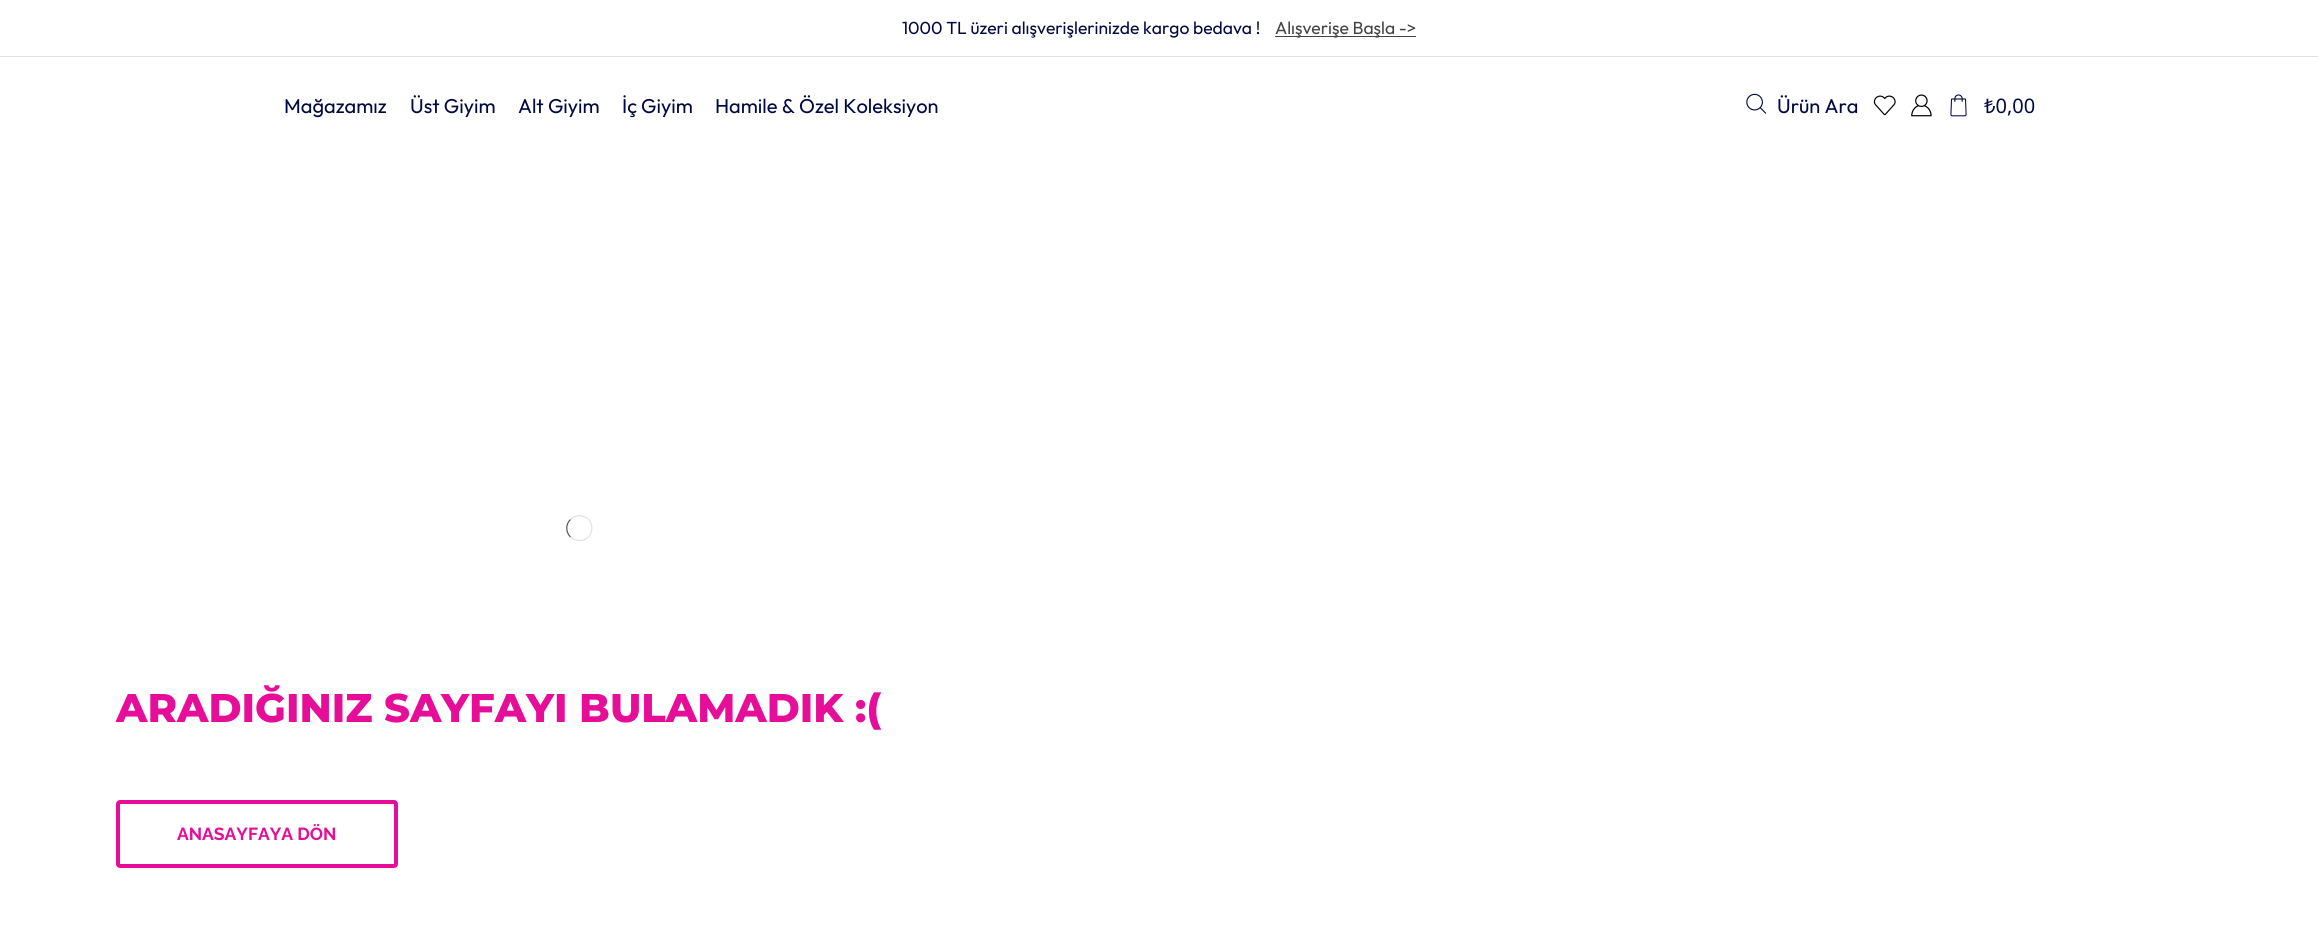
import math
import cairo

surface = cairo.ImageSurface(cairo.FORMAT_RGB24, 2318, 948)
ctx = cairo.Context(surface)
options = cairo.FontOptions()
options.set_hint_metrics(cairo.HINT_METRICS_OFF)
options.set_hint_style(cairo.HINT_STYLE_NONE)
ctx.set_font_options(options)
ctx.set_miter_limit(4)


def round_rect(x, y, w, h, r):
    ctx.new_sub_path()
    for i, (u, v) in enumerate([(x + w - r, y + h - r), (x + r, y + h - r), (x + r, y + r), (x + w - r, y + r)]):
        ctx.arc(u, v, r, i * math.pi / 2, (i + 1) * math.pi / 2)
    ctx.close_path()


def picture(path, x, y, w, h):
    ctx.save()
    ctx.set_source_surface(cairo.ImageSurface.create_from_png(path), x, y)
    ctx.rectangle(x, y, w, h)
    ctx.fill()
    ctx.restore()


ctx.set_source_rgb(1, 1, 1)
ctx.paint()
ctx.select_font_face("Outfit")
ctx.set_font_size(17.5)
ctx.set_source_rgb(0, 0.039, 0.259)
ctx.move_to(902, 34)
ctx.show_text("1000 TL üzeri alışverişlerinizde kargo bedava !")
ctx.set_source_rgb(0.267, 0.267, 0.267)
ctx.rectangle(1275, 36, 141, 1)
ctx.fill()
ctx.move_to(1275, 34)
ctx.show_text("Alışverişe Başla ->")
ctx.set_source_rgb(0.882, 0.882, 0.882)
ctx.rectangle(0, 56, 2318, 1)
ctx.fill()
ctx.set_font_size(20)
ctx.set_source_rgb(0, 0.039, 0.259)
ctx.move_to(284, 113)
ctx.show_text("Mağazamız")
ctx.move_to(410, 113)
ctx.show_text("Üst Giyim")
ctx.move_to(518, 113)
ctx.show_text("Alt Giyim")
ctx.move_to(622, 113)
ctx.show_text("İç Giyim")
ctx.move_to(715, 113)
ctx.show_text("Hamile & Özel Koleksiyon")
picture("img1.png", 1746, 93, 21, 21)
ctx.move_to(1777, 113)
ctx.show_text("Ürün Ara")
picture("img2.png", 1873, 95, 23, 21)
picture("img3.png", 1911, 94, 21, 23)
picture("img4.png", 1950, 94, 17, 23)
ctx.select_font_face("Noto Sans")
ctx.move_to(1984, 113)
ctx.show_text("₺0,00")
ctx.new_path()
ctx.move_to(570.5, 519.5)
ctx.curve_to(573.5, 516.5, 578, 515, 582, 516)
ctx.curve_to(596.5, 519, 594.5, 540.5, 579.5, 540.5)
ctx.curve_to(576, 540.5, 573, 539.5, 570.5, 537)
ctx.set_source_rgb(0.882, 0.882, 0.882)
ctx.set_line_width(1.2)
ctx.stroke()
ctx.new_path()
ctx.move_to(570.5, 537)
ctx.curve_to(565.5, 532, 565.5, 524, 570.5, 519.5)
ctx.set_source_rgb(0.333, 0.333, 0.333)
ctx.stroke()
ctx.select_font_face("Montserrat ExtraBold")
ctx.set_font_size(40)
ctx.set_source_rgb(0.902, 0.055, 0.596)
ctx.move_to(116, 722)
ctx.show_text("ARADIĞINIZ SAYFAYI BULAMADIK :(")
round_rect(118, 802, 278, 64, 2)
ctx.set_line_width(4)
ctx.stroke()
ctx.select_font_face("Raleway", cairo.FONT_SLANT_NORMAL, cairo.FONT_WEIGHT_BOLD)
ctx.set_font_size(17.5)
ctx.move_to(177, 840)
ctx.show_text("ANASAYFAYA DÖN")
surface.write_to_png("page.png")
